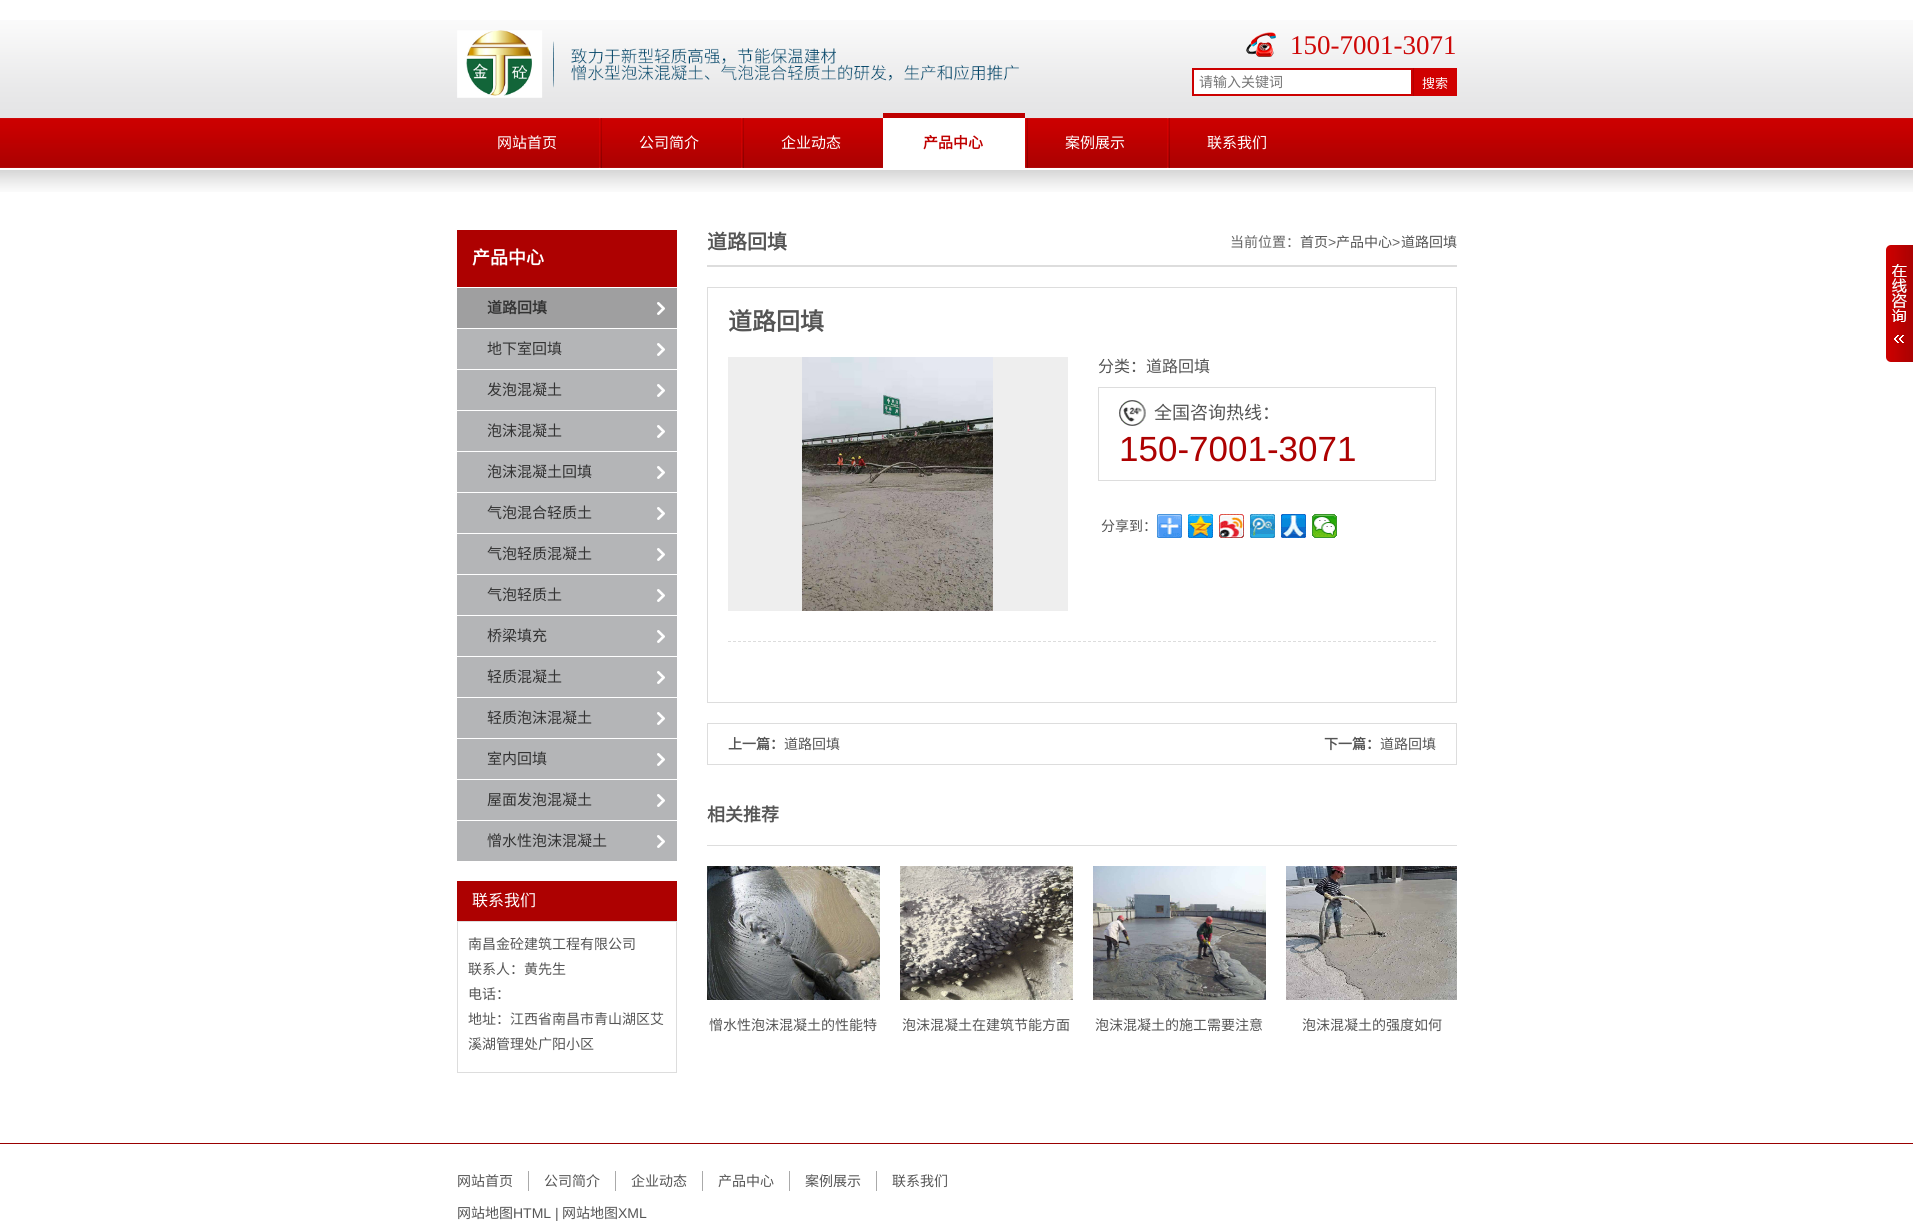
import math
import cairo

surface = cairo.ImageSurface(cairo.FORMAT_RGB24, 1913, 1230)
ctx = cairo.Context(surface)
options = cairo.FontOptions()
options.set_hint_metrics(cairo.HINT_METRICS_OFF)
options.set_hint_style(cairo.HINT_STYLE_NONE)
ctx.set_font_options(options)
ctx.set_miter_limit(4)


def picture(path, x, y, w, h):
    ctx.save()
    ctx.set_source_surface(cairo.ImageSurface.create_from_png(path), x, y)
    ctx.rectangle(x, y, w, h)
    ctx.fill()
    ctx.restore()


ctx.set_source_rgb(1, 1, 1)
ctx.paint()
picture("img1.png", 0, 20, 1913, 93)
picture("img2.png", 457, 30, 562, 68)
picture("img3.png", 1246, 32, 30, 25)
ctx.select_font_face("Liberation Serif")
ctx.set_font_size(27)
ctx.set_source_rgb(0.808, 0.035, 0.035)
ctx.move_to(1290, 54)
ctx.show_text("150-7001-3071")
ctx.set_source_rgb(1, 1, 1)
ctx.rectangle(1193, 69, 219, 26)
ctx.fill_preserve()
ctx.set_source_rgb(0.8, 0, 0)
ctx.stroke()
ctx.select_font_face("Noto Sans CJK SC")
ctx.set_font_size(14)
ctx.set_source_rgb(0.459, 0.459, 0.459)
ctx.move_to(1199, 87)
ctx.show_text("请输入关键词")
ctx.set_source_rgb(0.816, 0, 0)
ctx.rectangle(1414, 68, 43, 28)
ctx.fill()
ctx.set_source_rgb(0.706, 0, 0)
ctx.rectangle(1413, 68, 1, 28)
ctx.fill()
ctx.set_font_size(13)
ctx.set_source_rgb(1, 1, 1)
ctx.move_to(1422, 88)
ctx.show_text("搜索")
picture("img4.png", 0, 118, 1913, 50)
ctx.set_source_rgb(0.898, 0.898, 0.902)
ctx.rectangle(0, 113, 1913, 5)
ctx.fill()
ctx.set_font_size(15)
ctx.set_source_rgb(1, 1, 1)
ctx.move_to(497, 148)
ctx.show_text("网站首页")
picture("img5.png", 599, 118, 3, 50)
ctx.move_to(639, 148)
ctx.show_text("公司简介")
picture("img5.png", 741, 118, 3, 50)
ctx.move_to(781, 148)
ctx.show_text("企业动态")
ctx.rectangle(883, 118, 142, 50)
ctx.fill()
ctx.set_source_rgb(0.749, 0, 0)
ctx.rectangle(883, 113, 142, 5)
ctx.fill()
ctx.select_font_face("Noto Sans CJK SC", cairo.FONT_SLANT_NORMAL, cairo.FONT_WEIGHT_BOLD)
ctx.move_to(923, 148)
ctx.show_text("产品中心")
picture("img6.png", 1025, 118, 3, 50)
ctx.select_font_face("Noto Sans CJK SC")
ctx.set_source_rgb(1, 1, 1)
ctx.move_to(1065, 148)
ctx.show_text("案例展示")
picture("img5.png", 1167, 118, 3, 50)
ctx.move_to(1207, 148)
ctx.show_text("联系我们")
picture("img7.png", 0, 170, 1913, 22)
ctx.set_source_rgb(0.678, 0.004, 0.004)
ctx.rectangle(457, 230, 220, 57)
ctx.fill()
ctx.select_font_face("Noto Sans CJK SC", cairo.FONT_SLANT_NORMAL, cairo.FONT_WEIGHT_BOLD)
ctx.set_font_size(18)
ctx.set_source_rgb(1, 1, 1)
ctx.move_to(472, 264)
ctx.show_text("产品中心")
ctx.set_source_rgb(0.624, 0.624, 0.627)
ctx.rectangle(457, 288, 220, 40)
ctx.fill()
picture("img8.png", 657, 302, 8, 13)
ctx.set_font_size(15)
ctx.set_source_rgb(0.2, 0.2, 0.2)
ctx.move_to(487, 313)
ctx.show_text("道路回填")
ctx.set_source_rgb(0.706, 0.71, 0.718)
ctx.rectangle(457, 329, 220, 40)
ctx.fill()
picture("img9.png", 657, 343, 8, 13)
ctx.select_font_face("Noto Sans CJK SC")
ctx.set_source_rgb(0.2, 0.2, 0.2)
ctx.move_to(487, 354)
ctx.show_text("地下室回填")
ctx.set_source_rgb(0.706, 0.71, 0.718)
ctx.rectangle(457, 370, 220, 40)
ctx.fill()
picture("img9.png", 657, 384, 8, 13)
ctx.set_source_rgb(0.2, 0.2, 0.2)
ctx.move_to(487, 395)
ctx.show_text("发泡混凝土")
ctx.set_source_rgb(0.706, 0.71, 0.718)
ctx.rectangle(457, 411, 220, 40)
ctx.fill()
picture("img9.png", 657, 425, 8, 13)
ctx.set_source_rgb(0.2, 0.2, 0.2)
ctx.move_to(487, 436)
ctx.show_text("泡沫混凝土")
ctx.set_source_rgb(0.706, 0.71, 0.718)
ctx.rectangle(457, 452, 220, 40)
ctx.fill()
picture("img9.png", 657, 466, 8, 13)
ctx.set_source_rgb(0.2, 0.2, 0.2)
ctx.move_to(487, 477)
ctx.show_text("泡沫混凝土回填")
ctx.set_source_rgb(0.706, 0.71, 0.718)
ctx.rectangle(457, 493, 220, 40)
ctx.fill()
picture("img9.png", 657, 507, 8, 13)
ctx.set_source_rgb(0.2, 0.2, 0.2)
ctx.move_to(487, 518)
ctx.show_text("气泡混合轻质土")
ctx.set_source_rgb(0.706, 0.71, 0.718)
ctx.rectangle(457, 534, 220, 40)
ctx.fill()
picture("img9.png", 657, 548, 8, 13)
ctx.set_source_rgb(0.2, 0.2, 0.2)
ctx.move_to(487, 559)
ctx.show_text("气泡轻质混凝土")
ctx.set_source_rgb(0.706, 0.71, 0.718)
ctx.rectangle(457, 575, 220, 40)
ctx.fill()
picture("img9.png", 657, 589, 8, 13)
ctx.set_source_rgb(0.2, 0.2, 0.2)
ctx.move_to(487, 600)
ctx.show_text("气泡轻质土")
ctx.set_source_rgb(0.706, 0.71, 0.718)
ctx.rectangle(457, 616, 220, 40)
ctx.fill()
picture("img9.png", 657, 630, 8, 13)
ctx.set_source_rgb(0.2, 0.2, 0.2)
ctx.move_to(487, 641)
ctx.show_text("桥梁填充")
ctx.set_source_rgb(0.706, 0.71, 0.718)
ctx.rectangle(457, 657, 220, 40)
ctx.fill()
picture("img9.png", 657, 671, 8, 13)
ctx.set_source_rgb(0.2, 0.2, 0.2)
ctx.move_to(487, 682)
ctx.show_text("轻质混凝土")
ctx.set_source_rgb(0.706, 0.71, 0.718)
ctx.rectangle(457, 698, 220, 40)
ctx.fill()
picture("img9.png", 657, 712, 8, 13)
ctx.set_source_rgb(0.2, 0.2, 0.2)
ctx.move_to(487, 723)
ctx.show_text("轻质泡沫混凝土")
ctx.set_source_rgb(0.706, 0.71, 0.718)
ctx.rectangle(457, 739, 220, 40)
ctx.fill()
picture("img9.png", 657, 753, 8, 13)
ctx.set_source_rgb(0.2, 0.2, 0.2)
ctx.move_to(487, 764)
ctx.show_text("室内回填")
ctx.set_source_rgb(0.706, 0.71, 0.718)
ctx.rectangle(457, 780, 220, 40)
ctx.fill()
picture("img9.png", 657, 794, 8, 13)
ctx.set_source_rgb(0.2, 0.2, 0.2)
ctx.move_to(487, 805)
ctx.show_text("屋面发泡混凝土")
ctx.set_source_rgb(0.706, 0.71, 0.718)
ctx.rectangle(457, 821, 220, 40)
ctx.fill()
picture("img9.png", 657, 835, 8, 13)
ctx.set_source_rgb(0.2, 0.2, 0.2)
ctx.move_to(487, 846)
ctx.show_text("憎水性泡沫混凝土")
ctx.set_source_rgb(0.678, 0.004, 0.004)
ctx.rectangle(457, 881, 220, 40)
ctx.fill()
ctx.set_font_size(16)
ctx.set_source_rgb(1, 1, 1)
ctx.move_to(472, 906)
ctx.show_text("联系我们")
ctx.rectangle(457.5, 921.5, 219, 151)
ctx.set_source_rgb(0.867, 0.867, 0.867)
ctx.set_line_width(1)
ctx.stroke()
ctx.set_font_size(14)
ctx.set_source_rgb(0.333, 0.333, 0.333)
ctx.move_to(468, 949)
ctx.show_text("南昌金砼建筑工程有限公司")
ctx.move_to(468, 974)
ctx.show_text("联系人：黄先生")
ctx.move_to(468, 999)
ctx.show_text("电话：")
ctx.move_to(468, 1024)
ctx.show_text("地址：江西省南昌市青山湖区艾")
ctx.move_to(468, 1049)
ctx.show_text("溪湖管理处广阳小区")
ctx.set_source_rgb(0.867, 0.867, 0.867)
ctx.rectangle(707, 265, 750, 2)
ctx.fill()
ctx.select_font_face("Noto Sans CJK SC", cairo.FONT_SLANT_NORMAL, cairo.FONT_WEIGHT_BOLD)
ctx.set_font_size(20)
ctx.set_source_rgb(0.333, 0.333, 0.333)
ctx.move_to(707, 249)
ctx.show_text("道路回填")
ctx.select_font_face("Noto Sans CJK SC")
ctx.set_font_size(14)
ctx.set_source_rgb(0.4, 0.4, 0.4)
ctx.move_to(1230, 247)
ctx.show_text("当前位置：")
ctx.set_source_rgb(0.333, 0.333, 0.333)
ctx.move_to(1300, 247)
ctx.show_text("首页")
ctx.select_font_face("Liberation Sans")
ctx.set_source_rgb(0.4, 0.4, 0.4)
ctx.move_to(1328, 247)
ctx.show_text(">")
ctx.select_font_face("Noto Sans CJK SC")
ctx.set_source_rgb(0.333, 0.333, 0.333)
ctx.move_to(1336, 247)
ctx.show_text("产品中心")
ctx.select_font_face("Liberation Sans")
ctx.set_source_rgb(0.4, 0.4, 0.4)
ctx.move_to(1392, 247)
ctx.show_text(">")
ctx.select_font_face("Noto Sans CJK SC")
ctx.set_source_rgb(0.333, 0.333, 0.333)
ctx.move_to(1401, 247)
ctx.show_text("道路回填")
ctx.rectangle(707.5, 287.5, 749, 415)
ctx.set_source_rgb(0.867, 0.867, 0.867)
ctx.stroke()
ctx.select_font_face("Noto Sans CJK SC", cairo.FONT_SLANT_NORMAL, cairo.FONT_WEIGHT_BOLD)
ctx.set_font_size(24)
ctx.set_source_rgb(0.333, 0.333, 0.333)
ctx.move_to(728, 330)
ctx.show_text("道路回填")
ctx.set_source_rgb(0.933, 0.933, 0.933)
ctx.rectangle(728, 357, 340, 254)
ctx.fill()
picture("img10.png", 802, 357, 191, 254)
ctx.select_font_face("Noto Sans CJK SC")
ctx.set_font_size(16)
ctx.set_source_rgb(0.333, 0.333, 0.333)
ctx.move_to(1098, 372)
ctx.show_text("分类：道路回填")
ctx.rectangle(1098.5, 387.5, 337, 93)
ctx.set_source_rgb(0.867, 0.867, 0.867)
ctx.stroke()
picture("img11.png", 1119, 400, 27, 26)
ctx.set_font_size(18)
ctx.set_source_rgb(0.333, 0.333, 0.333)
ctx.move_to(1154, 419)
ctx.show_text("全国咨询热线：")
ctx.select_font_face("Liberation Sans")
ctx.set_font_size(35)
ctx.set_source_rgb(0.678, 0.004, 0.004)
ctx.move_to(1119, 461)
ctx.show_text("150-7001-3071")
ctx.select_font_face("Noto Sans CJK SC")
ctx.set_font_size(14)
ctx.set_source_rgb(0.333, 0.333, 0.333)
ctx.move_to(1101, 531)
ctx.show_text("分享到：")
picture("img12.png", 1157, 514, 25, 24)
picture("img13.png", 1188, 514, 25, 24)
picture("img14.png", 1219, 514, 25, 24)
picture("img15.png", 1250, 514, 25, 24)
picture("img16.png", 1281, 514, 25, 24)
picture("img17.png", 1312, 514, 25, 24)
ctx.new_path()
ctx.move_to(728, 641.5)
ctx.line_to(1436, 641.5)
ctx.set_source_rgb(0.867, 0.867, 0.867)
ctx.set_dash([3, 2])
ctx.stroke()
ctx.rectangle(707.5, 723.5, 749, 41)
ctx.set_dash([])
ctx.stroke()
ctx.select_font_face("Noto Sans CJK SC", cairo.FONT_SLANT_NORMAL, cairo.FONT_WEIGHT_BOLD)
ctx.set_source_rgb(0.333, 0.333, 0.333)
ctx.move_to(728, 749)
ctx.show_text("上一篇：")
ctx.select_font_face("Noto Sans CJK SC")
ctx.move_to(784, 749)
ctx.show_text("道路回填")
ctx.select_font_face("Noto Sans CJK SC", cairo.FONT_SLANT_NORMAL, cairo.FONT_WEIGHT_BOLD)
ctx.move_to(1324, 749)
ctx.show_text("下一篇：")
ctx.select_font_face("Noto Sans CJK SC")
ctx.move_to(1380, 749)
ctx.show_text("道路回填")
ctx.set_source_rgb(0.867, 0.867, 0.867)
ctx.rectangle(707, 845, 750, 1)
ctx.fill()
ctx.select_font_face("Noto Sans CJK SC", cairo.FONT_SLANT_NORMAL, cairo.FONT_WEIGHT_BOLD)
ctx.set_font_size(18)
ctx.set_source_rgb(0.333, 0.333, 0.333)
ctx.move_to(707, 821)
ctx.show_text("相关推荐")
picture("img18.png", 707, 866, 173, 134)
ctx.select_font_face("Noto Sans CJK SC")
ctx.set_font_size(14)
ctx.move_to(709, 1030)
ctx.show_text("憎水性泡沫混凝土的性能特")
picture("img19.png", 900, 866, 173, 134)
ctx.move_to(902, 1030)
ctx.show_text("泡沫混凝土在建筑节能方面")
picture("img20.png", 1093, 866, 173, 134)
ctx.move_to(1095, 1030)
ctx.show_text("泡沫混凝土的施工需要注意")
picture("img21.png", 1286, 866, 171, 134)
ctx.move_to(1302, 1030)
ctx.show_text("泡沫混凝土的强度如何")
picture("img22.png", 1886, 245, 27, 117)
ctx.set_source_rgb(0.6, 0, 0)
ctx.rectangle(0, 1143, 1913, 1)
ctx.fill()
ctx.set_source_rgb(0.333, 0.333, 0.333)
ctx.move_to(457, 1186)
ctx.show_text("网站首页")
ctx.set_source_rgb(0.667, 0.667, 0.667)
ctx.rectangle(528, 1171, 1, 20)
ctx.fill()
ctx.set_source_rgb(0.333, 0.333, 0.333)
ctx.move_to(544, 1186)
ctx.show_text("公司简介")
ctx.set_source_rgb(0.667, 0.667, 0.667)
ctx.rectangle(615, 1171, 1, 20)
ctx.fill()
ctx.set_source_rgb(0.333, 0.333, 0.333)
ctx.move_to(631, 1186)
ctx.show_text("企业动态")
ctx.set_source_rgb(0.667, 0.667, 0.667)
ctx.rectangle(702, 1171, 1, 20)
ctx.fill()
ctx.set_source_rgb(0.333, 0.333, 0.333)
ctx.move_to(718, 1186)
ctx.show_text("产品中心")
ctx.set_source_rgb(0.667, 0.667, 0.667)
ctx.rectangle(789, 1171, 1, 20)
ctx.fill()
ctx.set_source_rgb(0.333, 0.333, 0.333)
ctx.move_to(805, 1186)
ctx.show_text("案例展示")
ctx.set_source_rgb(0.667, 0.667, 0.667)
ctx.rectangle(876, 1171, 1, 20)
ctx.fill()
ctx.set_source_rgb(0.333, 0.333, 0.333)
ctx.move_to(892, 1186)
ctx.show_text("联系我们")
ctx.move_to(457, 1218)
ctx.show_text("网站地图")
ctx.select_font_face("Liberation Sans")
ctx.move_to(513, 1218)
ctx.show_text("HTML |")
ctx.select_font_face("Noto Sans CJK SC")
ctx.move_to(562, 1218)
ctx.show_text("网站地图")
ctx.select_font_face("Liberation Sans")
ctx.move_to(618, 1218)
ctx.show_text("XML")
surface.write_to_png("page.png")
